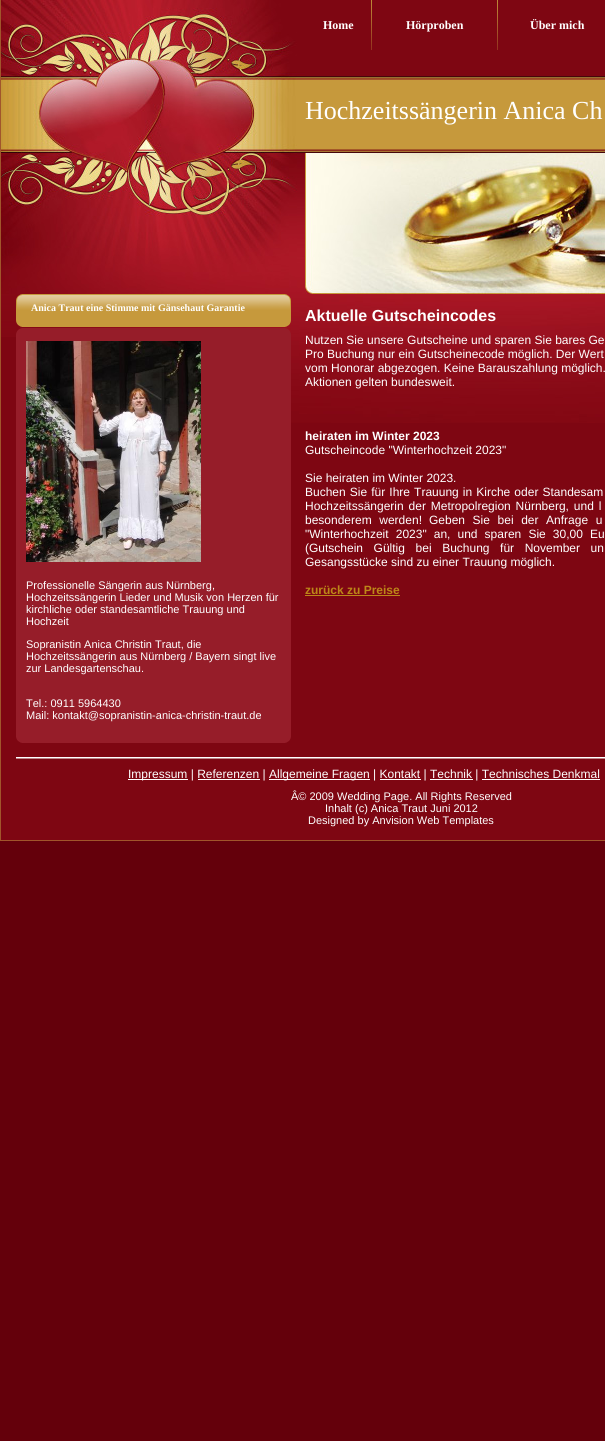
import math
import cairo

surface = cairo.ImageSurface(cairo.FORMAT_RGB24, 605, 1441)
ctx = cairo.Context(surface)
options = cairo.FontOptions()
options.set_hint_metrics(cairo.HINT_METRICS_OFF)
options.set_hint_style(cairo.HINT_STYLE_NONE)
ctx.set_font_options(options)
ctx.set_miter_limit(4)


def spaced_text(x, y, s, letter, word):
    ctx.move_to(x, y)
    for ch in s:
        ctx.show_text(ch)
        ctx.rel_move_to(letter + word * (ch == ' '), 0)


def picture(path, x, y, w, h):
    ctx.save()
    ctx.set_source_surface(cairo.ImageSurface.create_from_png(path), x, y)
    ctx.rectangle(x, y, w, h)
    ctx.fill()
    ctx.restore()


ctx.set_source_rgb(0.392, 0, 0.043)
ctx.paint()
ctx.set_source_rgb(0.494, 0.024, 0.071)
ctx.rectangle(1, 0, 604, 840)
ctx.fill()
picture("img1.png", 1, 294, 15, 43)
ctx.set_source_rgb(0.631, 0.333, 0.169)
ctx.rectangle(0, 840, 605, 1)
ctx.fill()
ctx.rectangle(0, 0, 1, 841)
ctx.fill()
picture("img2.png", 1, 0, 304, 294)
ctx.select_font_face("Liberation Serif", cairo.FONT_SLANT_NORMAL, cairo.FONT_WEIGHT_BOLD)
ctx.set_font_size(12)
ctx.set_source_rgb(1, 1, 1)
ctx.move_to(323, 29)
ctx.show_text("Home")
picture("img3.png", 371, 0, 1, 50)
ctx.move_to(406, 29)
ctx.show_text("Hörproben")
picture("img3.png", 497, 0, 1, 50)
ctx.move_to(530, 29)
ctx.show_text("Über mich")
picture("img4.png", 305, 76, 300, 77)
ctx.select_font_face("Liberation Serif")
ctx.set_font_size(26)
ctx.move_to(305, 119)
ctx.show_text("Hochzeitssängerin Anica Ch")
picture("img5.png", 305, 153, 300, 141)
picture("img6.png", 16, 294, 275, 33)
ctx.select_font_face("Liberation Serif", cairo.FONT_SLANT_NORMAL, cairo.FONT_WEIGHT_BOLD)
ctx.set_font_size(10)
ctx.move_to(31, 311)
ctx.show_text("Anica Traut eine Stimme mit Gänsehaut Garantie")
picture("img7.png", 16, 327, 275, 9)
ctx.set_source_rgb(0.588, 0.114, 0.161)
ctx.rectangle(16, 336, 275, 401)
ctx.fill()
picture("img8.png", 26, 341, 175, 221)
ctx.select_font_face("Liberation Sans")
ctx.set_font_size(11)
ctx.set_source_rgb(1, 1, 1)
ctx.move_to(26, 589)
ctx.show_text("Professionelle Sängerin aus Nürnberg,")
ctx.move_to(26, 601)
ctx.show_text("Hochzeitssängerin Lieder und Musik von Herzen für")
ctx.move_to(26, 613)
ctx.show_text("kirchliche oder standesamtliche Trauung und")
ctx.move_to(26, 625)
ctx.show_text("Hochzeit")
ctx.move_to(26, 648)
ctx.show_text("Sopranistin Anica Christin Traut, die")
ctx.move_to(26, 660)
ctx.show_text("Hochzeitssängerin aus Nürnberg / Bayern singt live")
ctx.move_to(26, 672)
ctx.show_text("zur Landesgartenschau.")
ctx.move_to(26, 707)
ctx.show_text("Tel.: 0911 5964430")
ctx.move_to(26, 719)
ctx.show_text("Mail: kontakt@sopranistin-anica-christin-traut.de")
picture("img9.png", 16, 737, 275, 6)
picture("img10.png", 291, 294, 314, 129)
ctx.select_font_face("Liberation Sans", cairo.FONT_SLANT_NORMAL, cairo.FONT_WEIGHT_BOLD)
ctx.set_font_size(16)
ctx.move_to(305, 321)
ctx.show_text("Aktuelle Gutscheincodes")
ctx.select_font_face("Liberation Sans")
ctx.set_font_size(12)
ctx.move_to(305, 344)
ctx.show_text("Nutzen Sie unsere Gutscheine und sparen Sie bares Ge")
ctx.move_to(305, 358)
ctx.show_text("Pro Buchung nur ein Gutscheinecode möglich. Der Wert")
ctx.move_to(305, 372)
ctx.show_text("vom Honorar abgezogen. Keine Barauszahlung möglich.")
ctx.move_to(305, 386)
ctx.show_text("Aktionen gelten bundesweit.")
ctx.select_font_face("Liberation Sans", cairo.FONT_SLANT_NORMAL, cairo.FONT_WEIGHT_BOLD)
ctx.move_to(305, 440)
ctx.show_text("heiraten im Winter 2023")
ctx.select_font_face("Liberation Sans")
ctx.move_to(305, 454)
ctx.show_text("Gutscheincode \"Winterhochzeit 2023\"")
ctx.move_to(305, 482)
ctx.show_text("Sie heiraten im Winter 2023.")
spaced_text(305, 496, "Buchen Sie für Ihre Trauung in Kirche oder Standesam", 0, 0.75)
spaced_text(305, 510, "Hochzeitssängerin der Metropolregion Nürnberg, und l", 0, 1.5)
spaced_text(305, 524, "besonderem werden!", 0, 4.25)
spaced_text(429, 524, "Geben Sie bei der Anfrage u", 0, 4.25)
spaced_text(305, 538, "\"Winterhochzeit 2023\" an, und sparen Sie 30,00 Eu", 0, 3.75)
spaced_text(305, 552, "(Gutschein Gültig bei Buchung für November un", 0, 7.25)
ctx.move_to(305, 566)
ctx.show_text("Gesangsstücke sind zu einer Trauung möglich.")
ctx.select_font_face("Liberation Sans", cairo.FONT_SLANT_NORMAL, cairo.FONT_WEIGHT_BOLD)
ctx.set_source_rgb(0.741, 0.529, 0.094)
ctx.move_to(305, 594)
ctx.show_text("zurück zu Preise")
ctx.rectangle(305, 595, 95, 1)
ctx.fill()
picture("img11.png", 16, 757, 589, 2)
ctx.set_source_rgb(1, 1, 1)
ctx.rectangle(128, 779, 60, 1)
ctx.fill()
ctx.select_font_face("Liberation Sans")
ctx.move_to(128, 778)
ctx.show_text("Impressum | Referenzen |")
ctx.rectangle(269, 779, 101, 1)
ctx.fill()
ctx.move_to(269, 778)
ctx.show_text("Allgemeine Fragen | Kontakt | Technik | Technisches Denkmal")
ctx.rectangle(198, 779, 62, 1)
ctx.fill()
ctx.rectangle(380, 779, 41, 1)
ctx.fill()
ctx.rectangle(430, 779, 43, 1)
ctx.fill()
ctx.rectangle(482, 779, 118, 1)
ctx.fill()
ctx.set_font_size(11)
ctx.move_to(291, 800)
ctx.show_text("Â© 2009 Wedding Page. All Rights Reserved")
ctx.move_to(325, 812)
ctx.show_text("Inhalt (c) Anica Traut Juni 2012")
ctx.move_to(308, 824)
ctx.show_text("Designed by Anvision Web Templates")
surface.write_to_png("page.png")
